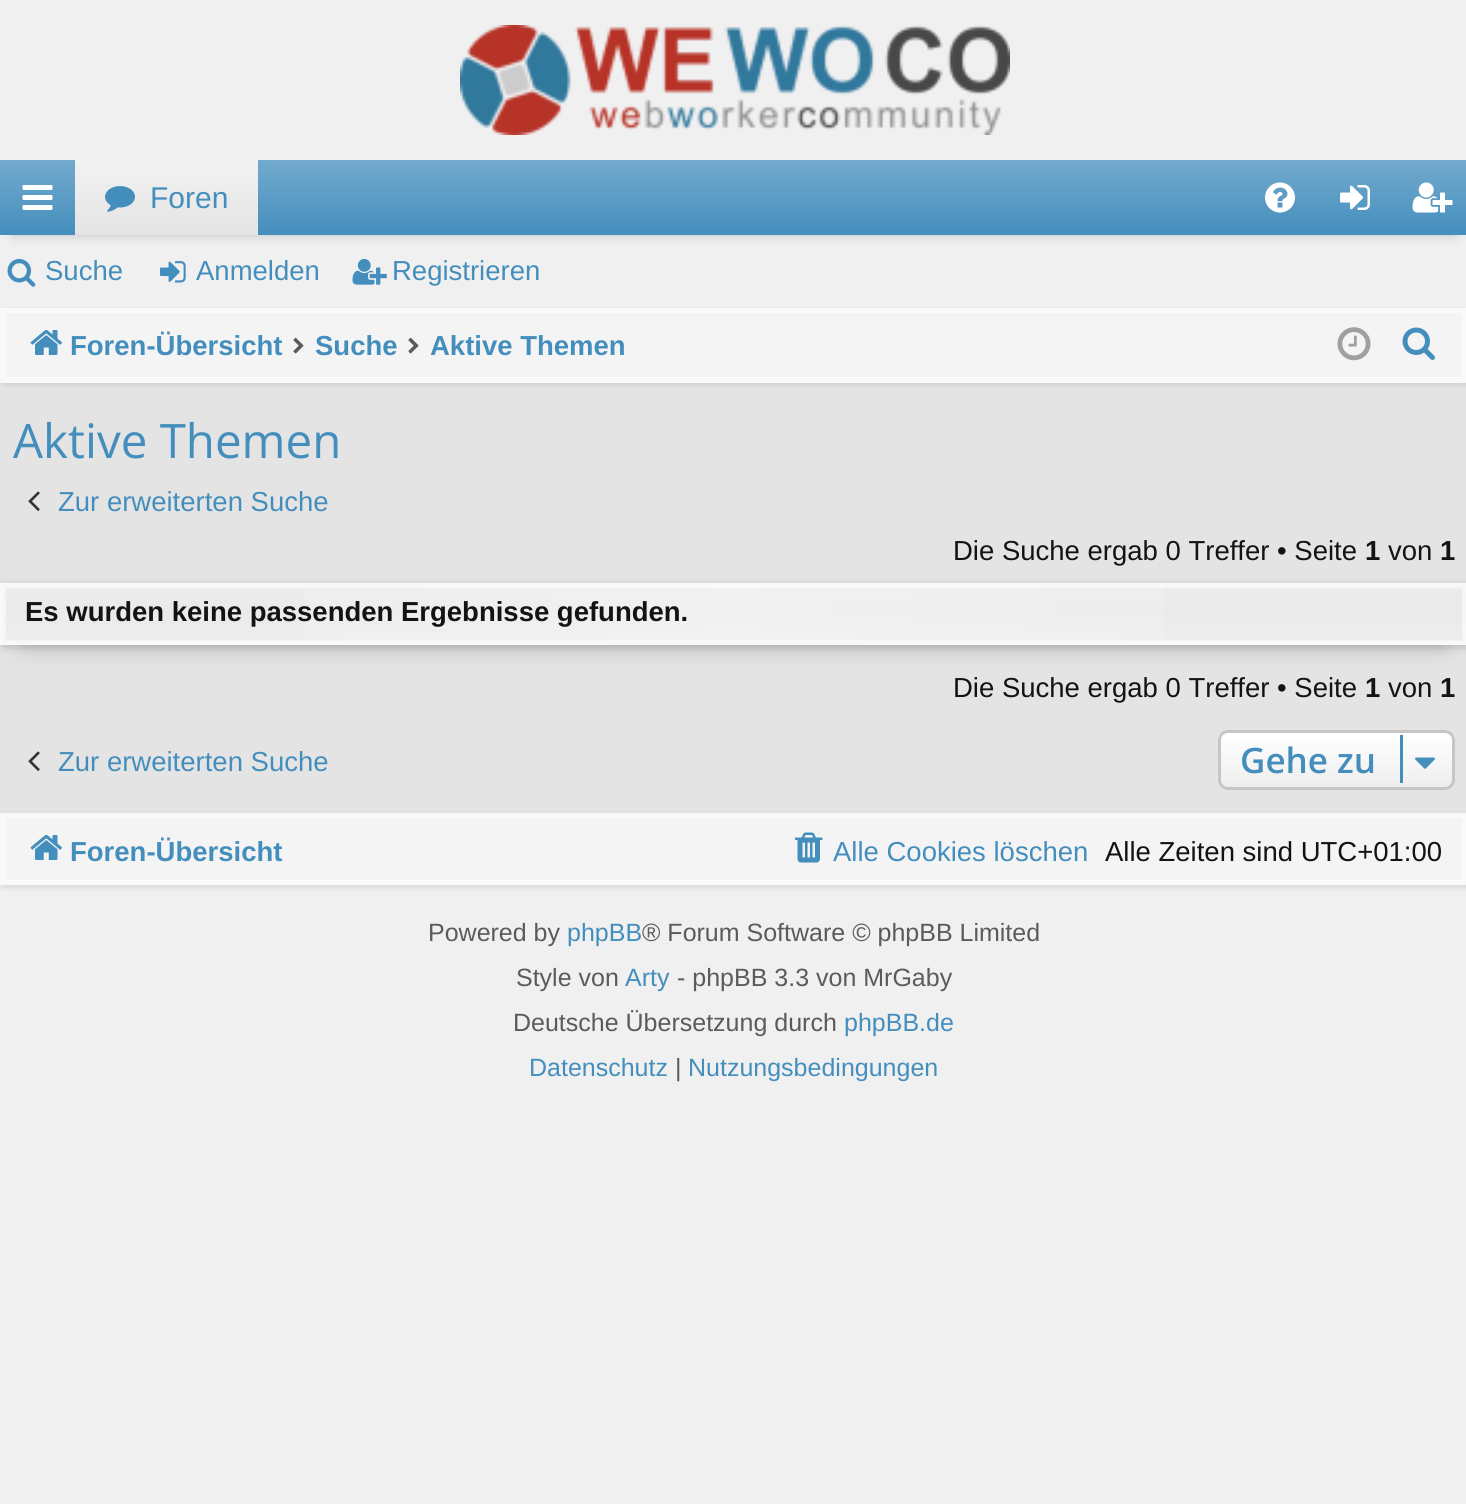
import math
import cairo

surface = cairo.ImageSurface(cairo.FORMAT_RGB24, 1466, 1504)
ctx = cairo.Context(surface)
options = cairo.FontOptions()
options.set_hint_metrics(cairo.HINT_METRICS_OFF)
options.set_hint_style(cairo.HINT_STYLE_NONE)
ctx.set_font_options(options)
ctx.set_miter_limit(4)


def round_rect(x, y, w, h, r):
    ctx.new_sub_path()
    for i, (u, v) in enumerate([(x + w - r, y + h - r), (x + r, y + h - r), (x + r, y + r), (x + w - r, y + r)]):
        ctx.arc(u, v, r, i * math.pi / 2, (i + 1) * math.pi / 2)
    ctx.close_path()


def shadow(x, y, w, h, r, blur, alpha):
    ctx.push_group_with_content(cairo.CONTENT_ALPHA)
    ctx.set_operator(cairo.OPERATOR_SOURCE)
    for i in range(15, -16, -2):
        e = blur * i / 6
        if min(w, h) + 2 * e > 0:
            ctx.set_source_rgba(0, 0, 0, alpha * math.erfc((i - 1) / 8.5) / 2)
            round_rect(x - e, y - e, w + 2 * e, h + 2 * e, max(0, min(r + e + blur * .6, min(w, h) / 2 + e)))
            ctx.fill()
    ctx.mask(ctx.pop_group())


def picture(path, x, y, w, h):
    ctx.save()
    ctx.set_source_surface(cairo.ImageSurface.create_from_png(path), x, y)
    ctx.rectangle(x, y, w, h)
    ctx.fill()
    ctx.restore()


ctx.set_source_rgb(0.941, 0.941, 0.941)
ctx.paint()
picture("img1.png", 460, 25, 550, 110)
ctx.set_source_rgb(0, 0, 0)
shadow(13, 185, 1442, 50, 0, 6, 0.2)
gradient = cairo.LinearGradient(734, 160, 734, 235)
gradient.add_color_stop_rgba(0, 0.451, 0.667, 0.804, 1)
gradient.add_color_stop_rgba(1, 0.267, 0.557, 0.741, 1)
ctx.set_source(gradient)
ctx.rectangle(0, 160, 1466, 75)
ctx.fill()
picture("img2.png", 22, 185, 31, 25)
gradient = cairo.LinearGradient(166, 160, 166, 235)
gradient.add_color_stop_rgba(0, 0.949, 0.949, 0.949, 1)
gradient.add_color_stop_rgba(1, 0.894, 0.894, 0.894, 1)
ctx.set_source(gradient)
ctx.rectangle(75, 160, 183, 75)
ctx.fill()
picture("img3.png", 105, 186, 30, 26)
ctx.select_font_face("Liberation Sans")
ctx.set_font_size(30)
ctx.set_source_rgb(0.267, 0.557, 0.741)
ctx.move_to(150, 208)
ctx.show_text("Foren")
picture("img4.png", 1265, 182, 30, 31)
picture("img5.png", 1340, 185, 30, 25)
picture("img6.png", 1412, 182, 41, 31)
picture("img7.png", 7, 258, 29, 29)
ctx.set_font_size(27.5)
ctx.move_to(45, 280)
ctx.show_text("Suche")
picture("img8.png", 160, 261, 26, 22)
ctx.move_to(196, 280)
ctx.show_text("Anmelden")
picture("img9.png", 352, 258, 35, 27)
ctx.move_to(392, 280)
ctx.show_text("Registrieren")
ctx.set_source_rgb(0.894, 0.894, 0.894)
ctx.rectangle(0, 383, 1466, 430)
ctx.fill()
ctx.set_source_rgb(0, 0, 0)
shadow(3, 310, 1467, 75, 0, 2.5, 0.1)
ctx.set_source_rgb(0.957, 0.957, 0.957)
ctx.rectangle(4.5, 311.5, 1459, 67)
ctx.fill_preserve()
ctx.set_source_rgb(0.98, 0.98, 0.98)
ctx.set_line_width(3)
ctx.stroke()
ctx.rectangle(1.5, 309.5, 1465, 72)
ctx.set_source_rgb(0.976, 0.976, 0.976)
ctx.stroke()
picture("img10.png", 30, 329, 32, 26)
ctx.select_font_face("Liberation Sans", cairo.FONT_SLANT_NORMAL, cairo.FONT_WEIGHT_BOLD)
ctx.set_source_rgb(0.267, 0.557, 0.741)
ctx.move_to(70, 355)
ctx.show_text("Foren-Übersicht")
picture("img11.png", 293, 337, 11, 17)
ctx.move_to(315, 355)
ctx.show_text("Suche")
picture("img11.png", 408, 337, 11, 17)
ctx.move_to(430, 355)
ctx.show_text("Aktive Themen")
picture("img12.png", 1337, 327, 34, 34)
picture("img13.png", 1402, 327, 33, 33)
ctx.select_font_face("Open Sans")
ctx.set_font_size(47.5)
ctx.move_to(13, 458)
ctx.show_text("Aktive Themen")
picture("img14.png", 28, 491, 12, 20)
ctx.select_font_face("Liberation Sans")
ctx.set_font_size(27.5)
ctx.move_to(58, 511)
ctx.show_text("Zur erweiterten Suche")
ctx.set_source_rgb(0.078, 0.078, 0.078)
ctx.move_to(953, 560)
ctx.show_text("Die Suche ergab 0 Treffer • Seite")
ctx.select_font_face("Liberation Sans", cairo.FONT_SLANT_NORMAL, cairo.FONT_WEIGHT_BOLD)
ctx.move_to(1365, 560)
ctx.show_text("1")
ctx.select_font_face("Liberation Sans")
ctx.move_to(1388, 560)
ctx.show_text("von")
ctx.select_font_face("Liberation Sans", cairo.FONT_SLANT_NORMAL, cairo.FONT_WEIGHT_BOLD)
ctx.move_to(1440, 560)
ctx.show_text("1")
ctx.set_source_rgb(0, 0, 0)
shadow(25, 633, 1418, 12, 0, 12.5, 0.2)
shadow(3, 585, 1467, 63, 0, 4, 0.15)
gradient = cairo.LinearGradient(734, 585, 734, 710)
gradient.add_color_stop_rgba(0, 0.925, 0.925, 0.925, 1)
gradient.add_color_stop_rgba(0.2, 0.918, 0.918, 0.918, 1)
gradient.add_color_stop_rgba(1, 0.957, 0.957, 0.957, 1)
ctx.set_source(gradient)
ctx.rectangle(3, 586, 1462, 56)
ctx.fill()
gradient = cairo.LinearGradient(2.5, 614, 1465, 614)
gradient.add_color_stop_rgba(0, 1, 1, 1, 0)
gradient.add_color_stop_rgba(0.5, 1, 1, 1, 0.3)
gradient.add_color_stop_rgba(1, 1, 1, 1, 0)
ctx.set_source(gradient)
ctx.rectangle(304, 586, 860, 56)
ctx.fill()
ctx.rectangle(4.5, 586.5, 1459, 55)
ctx.set_source_rgba(1, 1, 1, 0.5)
ctx.stroke()
ctx.rectangle(1.5, 584.5, 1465, 59)
ctx.set_source_rgb(0.976, 0.976, 0.976)
ctx.stroke()
ctx.set_source_rgb(0.078, 0.078, 0.078)
ctx.move_to(25, 621)
ctx.show_text("Es wurden keine passenden Ergebnisse gefunden.")
ctx.select_font_face("Liberation Sans")
ctx.move_to(953, 697)
ctx.show_text("Die Suche ergab 0 Treffer • Seite")
ctx.select_font_face("Liberation Sans", cairo.FONT_SLANT_NORMAL, cairo.FONT_WEIGHT_BOLD)
ctx.move_to(1365, 697)
ctx.show_text("1")
ctx.select_font_face("Liberation Sans")
ctx.move_to(1388, 697)
ctx.show_text("von")
ctx.select_font_face("Liberation Sans", cairo.FONT_SLANT_NORMAL, cairo.FONT_WEIGHT_BOLD)
ctx.move_to(1440, 697)
ctx.show_text("1")
picture("img14.png", 28, 751, 12, 20)
ctx.select_font_face("Liberation Sans")
ctx.set_source_rgb(0.267, 0.557, 0.741)
ctx.move_to(58, 771)
ctx.show_text("Zur erweiterten Suche")
ctx.set_source_rgb(0.933, 0.933, 0.933)
round_rect(1218, 730, 237, 60, 10)
ctx.fill()
ctx.save()
round_rect(1218, 730, 237, 60, 10)
ctx.clip()
gradient = cairo.LinearGradient(1336, 733, 1336, 788)
gradient.add_color_stop_rgba(0, 1, 1, 1, 1)
gradient.add_color_stop_rgba(1, 1, 1, 1, 0)
ctx.set_source(gradient)
ctx.rectangle(1218, 733, 237, 54)
ctx.fill()
ctx.restore()
round_rect(1219.5, 731.5, 234, 57, 8.5)
ctx.set_source_rgb(0.776, 0.776, 0.776)
ctx.stroke()
ctx.select_font_face("Open Sans SemiBold")
ctx.set_font_size(35)
ctx.set_source_rgb(0.267, 0.557, 0.741)
ctx.move_to(1240, 773)
ctx.show_text("Gehe zu")
ctx.rectangle(1400, 735, 3, 48)
ctx.fill()
picture("img15.png", 1415, 757, 20, 12)
ctx.set_source_rgb(0, 0, 0)
shadow(3, 815, 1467, 73, 0, 2.5, 0.1)
ctx.set_source_rgb(0.957, 0.957, 0.957)
ctx.rectangle(4.5, 816.5, 1459, 65)
ctx.fill_preserve()
ctx.set_source_rgb(0.98, 0.98, 0.98)
ctx.stroke()
ctx.rectangle(1.5, 814.5, 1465, 69)
ctx.set_source_rgb(0.976, 0.976, 0.976)
ctx.stroke()
picture("img10.png", 30, 834, 32, 26)
ctx.select_font_face("Liberation Sans", cairo.FONT_SLANT_NORMAL, cairo.FONT_WEIGHT_BOLD)
ctx.set_font_size(27.5)
ctx.set_source_rgb(0.267, 0.557, 0.741)
ctx.move_to(70, 861)
ctx.show_text("Foren-Übersicht")
picture("img16.png", 795, 832, 28, 31)
ctx.select_font_face("Liberation Sans")
ctx.move_to(833, 861)
ctx.show_text("Alle Cookies löschen")
ctx.set_source_rgb(0.078, 0.078, 0.078)
ctx.move_to(1105, 861)
ctx.show_text("Alle Zeiten sind UTC+01:00")
ctx.set_font_size(25)
ctx.set_source_rgb(0.357, 0.357, 0.357)
ctx.move_to(428, 941)
ctx.show_text("Powered by")
ctx.set_source_rgb(0.267, 0.557, 0.741)
ctx.move_to(567, 941)
ctx.show_text("phpBB")
ctx.set_source_rgb(0.357, 0.357, 0.357)
ctx.move_to(642, 941)
ctx.show_text("® Forum Software © phpBB Limited")
ctx.move_to(516, 986)
ctx.show_text("Style von")
ctx.set_source_rgb(0.267, 0.557, 0.741)
ctx.move_to(625, 986)
ctx.show_text("Arty")
ctx.set_source_rgb(0.357, 0.357, 0.357)
ctx.move_to(677, 986)
ctx.show_text("- phpBB 3.3 von MrGaby")
ctx.move_to(513, 1031)
ctx.show_text("Deutsche Übersetzung durch")
ctx.set_source_rgb(0.267, 0.557, 0.741)
ctx.move_to(844, 1031)
ctx.show_text("phpBB.de")
ctx.move_to(529, 1076)
ctx.show_text("Datenschutz")
ctx.set_source_rgb(0.357, 0.357, 0.357)
ctx.move_to(675, 1076)
ctx.show_text("|")
ctx.set_source_rgb(0.267, 0.557, 0.741)
ctx.move_to(688, 1076)
ctx.show_text("Nutzungsbedingungen")
surface.write_to_png("page.png")
